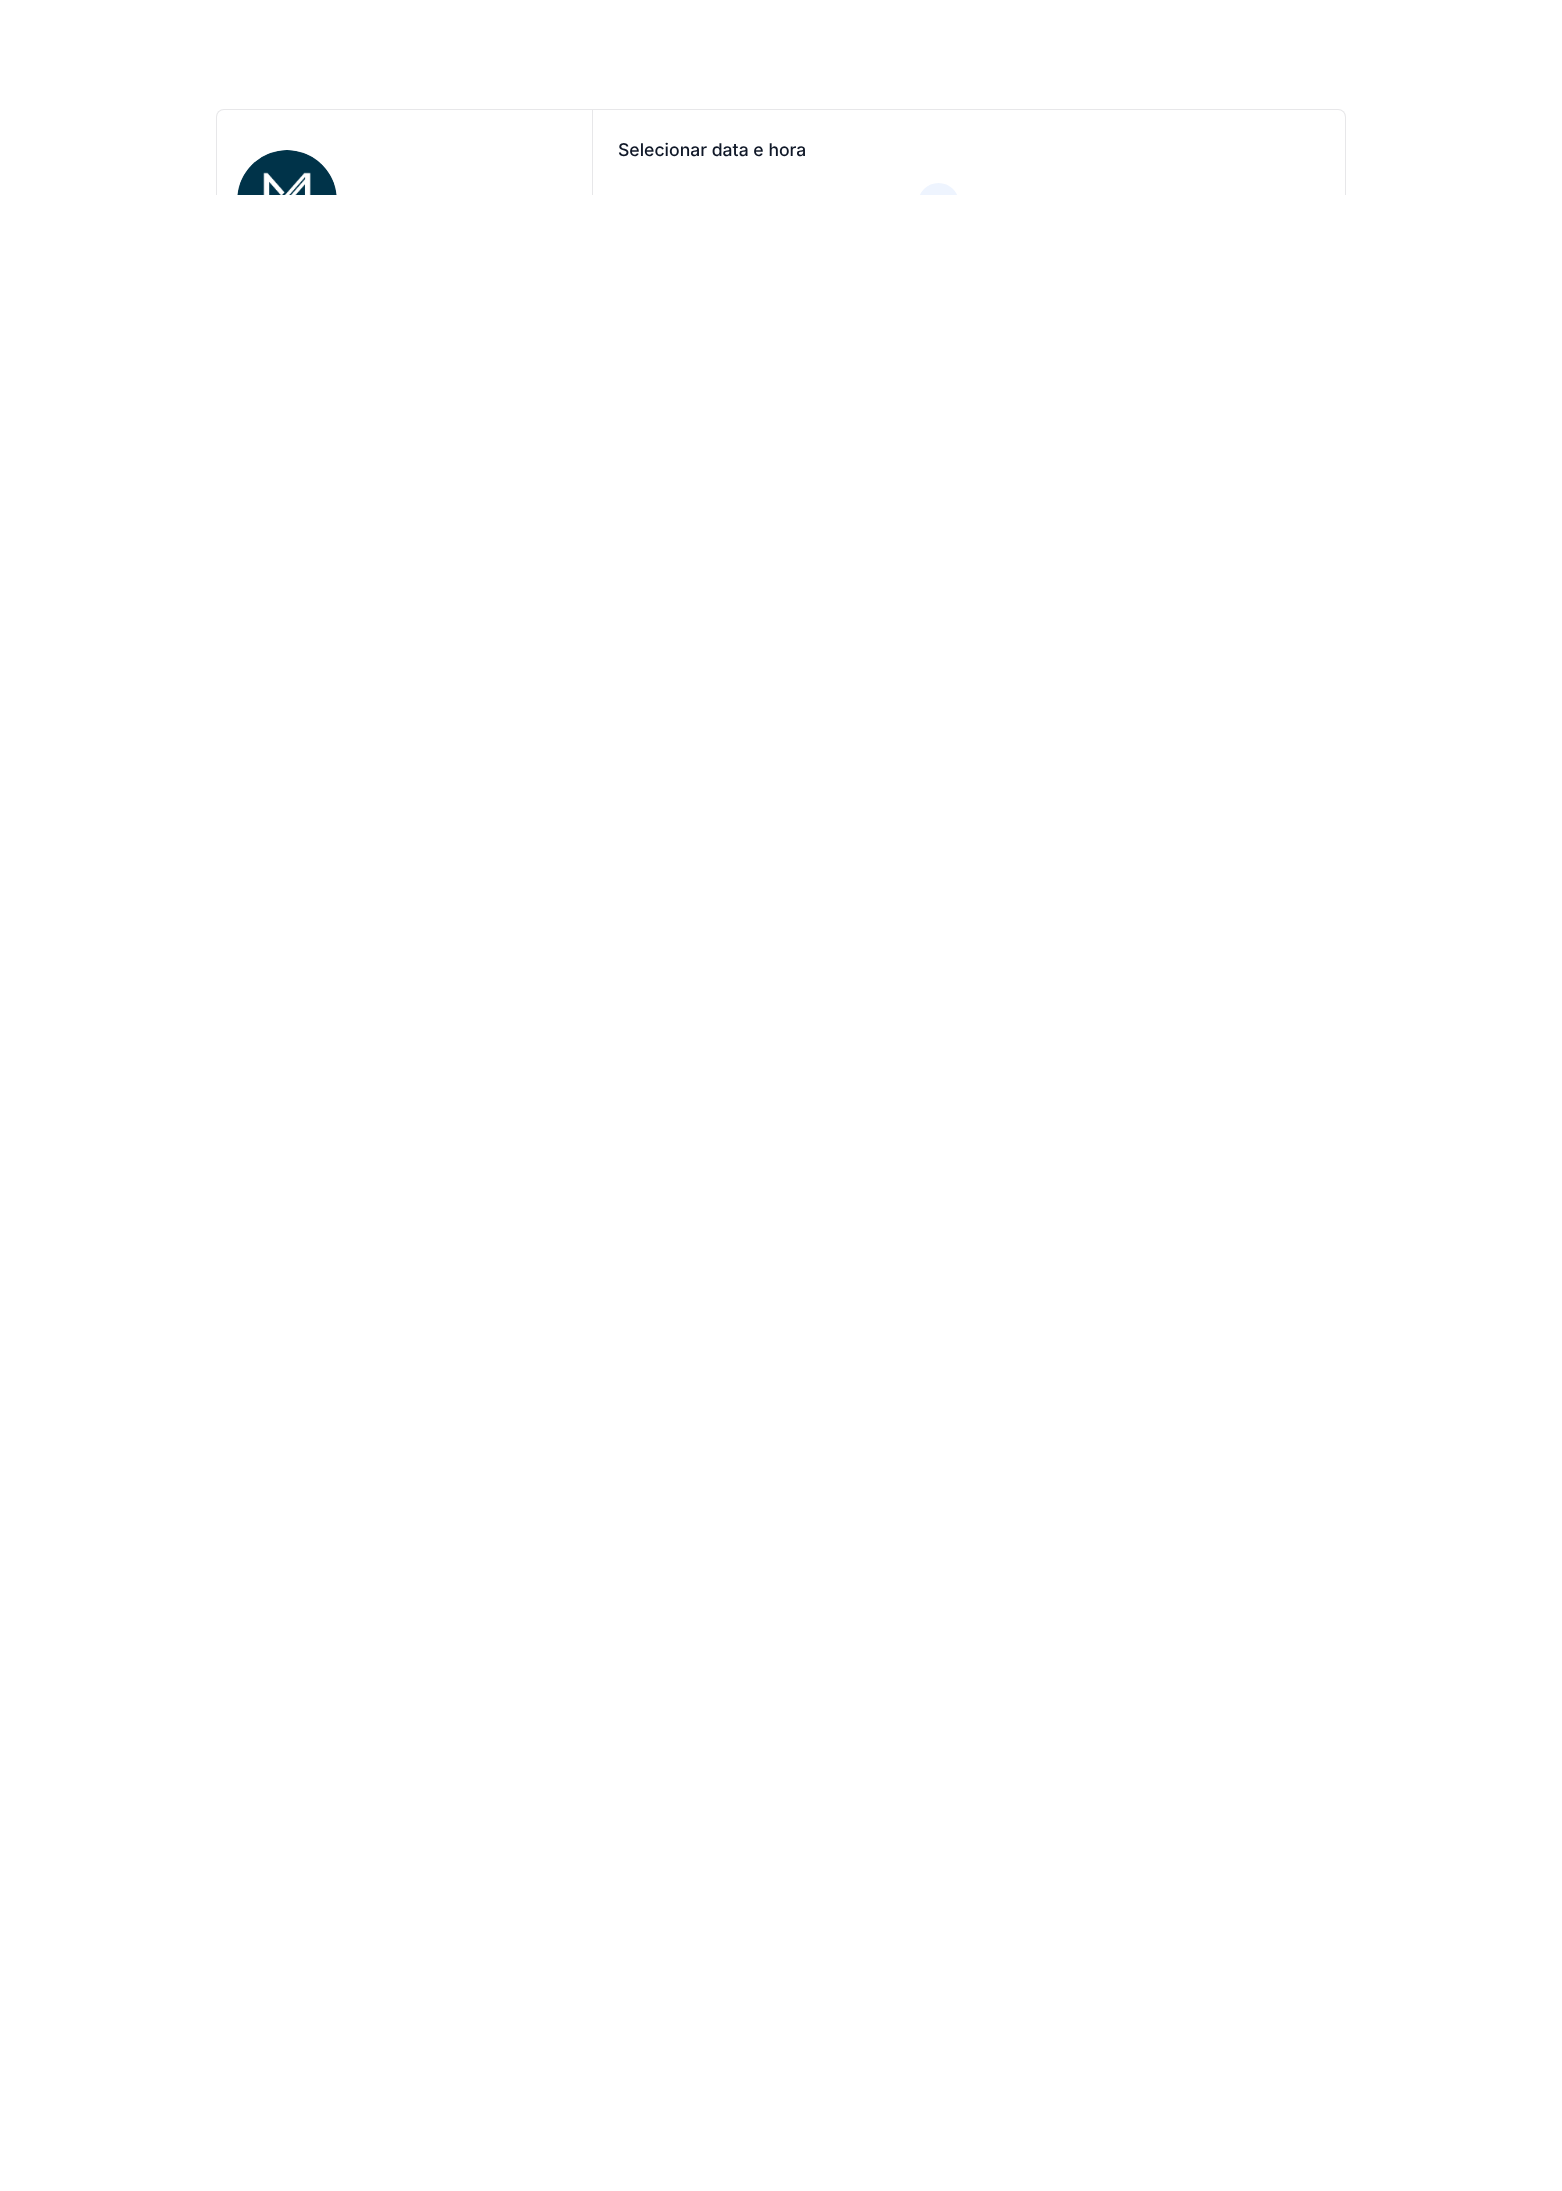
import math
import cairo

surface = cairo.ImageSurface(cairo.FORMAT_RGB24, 1562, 2191)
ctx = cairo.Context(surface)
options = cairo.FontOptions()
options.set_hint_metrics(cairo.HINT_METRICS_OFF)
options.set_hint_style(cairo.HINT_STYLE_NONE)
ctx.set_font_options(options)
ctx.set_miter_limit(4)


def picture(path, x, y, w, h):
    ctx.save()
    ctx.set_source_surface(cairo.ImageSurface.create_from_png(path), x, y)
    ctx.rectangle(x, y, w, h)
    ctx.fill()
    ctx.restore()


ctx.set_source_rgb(1, 1, 1)
ctx.paint()
picture("img1.png", 216, 109, 1130, 86)
surface.write_to_png("page.png")
